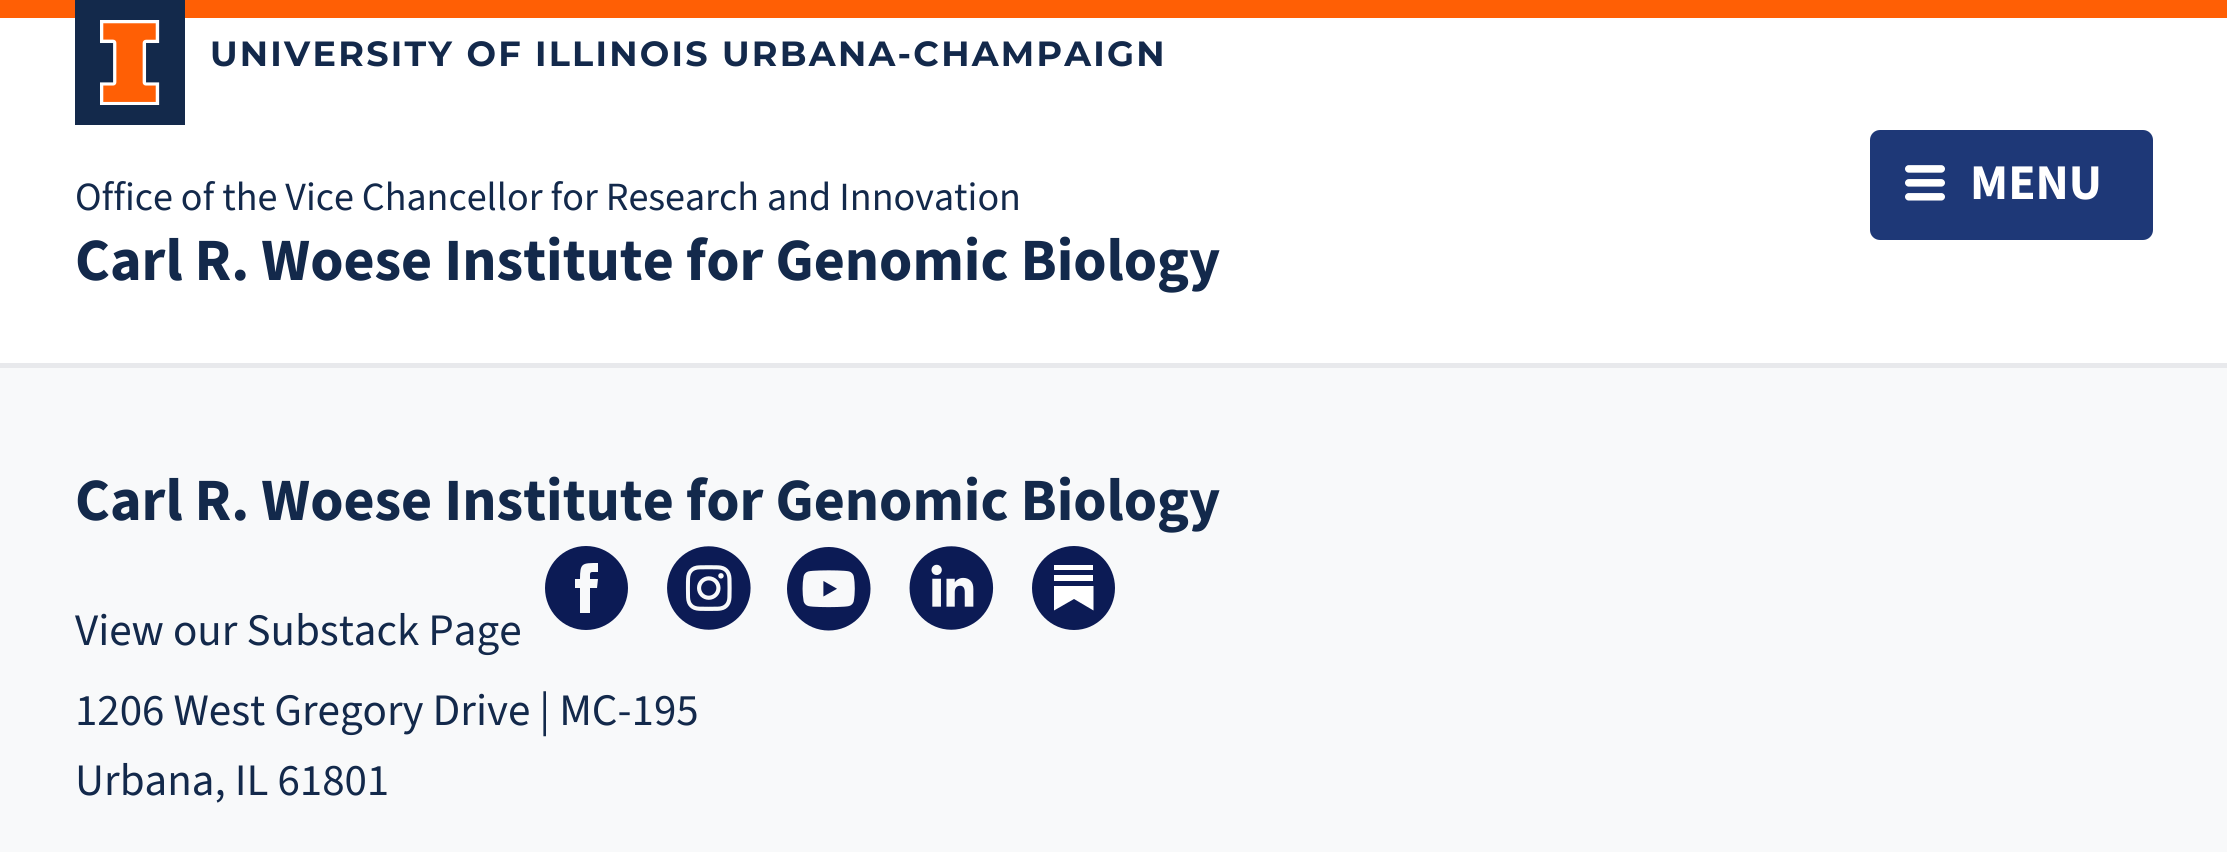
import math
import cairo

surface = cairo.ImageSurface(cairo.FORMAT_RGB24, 2227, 852)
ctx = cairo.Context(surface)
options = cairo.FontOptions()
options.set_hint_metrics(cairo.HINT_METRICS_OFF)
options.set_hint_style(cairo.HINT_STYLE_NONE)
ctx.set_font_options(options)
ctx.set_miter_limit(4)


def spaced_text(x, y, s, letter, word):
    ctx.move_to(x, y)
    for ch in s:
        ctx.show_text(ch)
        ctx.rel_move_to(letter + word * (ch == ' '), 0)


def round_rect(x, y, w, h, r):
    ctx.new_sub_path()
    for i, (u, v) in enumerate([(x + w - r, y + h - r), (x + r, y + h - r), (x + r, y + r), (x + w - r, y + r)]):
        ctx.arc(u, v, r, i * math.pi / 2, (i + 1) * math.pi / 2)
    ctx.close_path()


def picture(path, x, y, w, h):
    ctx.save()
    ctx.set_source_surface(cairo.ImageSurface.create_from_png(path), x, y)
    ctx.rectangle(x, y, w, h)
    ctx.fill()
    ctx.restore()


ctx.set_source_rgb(0.969, 0.973, 0.98)
ctx.paint()
ctx.set_source_rgb(1, 1, 1)
ctx.rectangle(0, 18, 2227, 345)
ctx.fill()
ctx.set_source_rgb(1, 0.373, 0.02)
ctx.rectangle(0, 0, 2227, 18)
ctx.fill()
ctx.set_source_rgb(0.075, 0.161, 0.294)
ctx.rectangle(75, 0, 110, 125)
ctx.fill()
picture("img1.png", 100, 20, 60, 85)
ctx.select_font_face("Montserrat", cairo.FONT_SLANT_NORMAL, cairo.FONT_WEIGHT_BOLD)
ctx.set_font_size(35)
spaced_text(210, 66, "UNIVERSITY OF ILLINOIS URBANA-CHAMPAIGN", 2.25, 0)
ctx.set_source_rgb(0.91, 0.914, 0.922)
ctx.rectangle(0, 363, 2227, 5)
ctx.fill()
ctx.select_font_face("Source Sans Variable")
ctx.set_font_size(40)
ctx.set_source_rgb(0.075, 0.161, 0.294)
ctx.move_to(75, 210)
ctx.show_text("Office of the Vice Chancellor for Research and Innovation")
ctx.select_font_face("Source Sans Variable", cairo.FONT_SLANT_NORMAL, cairo.FONT_WEIGHT_BOLD)
ctx.set_font_size(60)
ctx.move_to(75, 280)
ctx.show_text("Carl R. Woese Institute for Genomic Biology")
ctx.set_source_rgb(0.118, 0.22, 0.467)
round_rect(1870, 130, 283, 110, 10)
ctx.fill()
picture("img2.png", 1905, 165, 40, 36)
ctx.set_font_size(50)
ctx.set_source_rgb(1, 1, 1)
ctx.move_to(1970, 199)
ctx.show_text("MENU")
ctx.set_font_size(60)
ctx.set_source_rgb(0.075, 0.161, 0.294)
ctx.move_to(75, 520)
ctx.show_text("Carl R. Woese Institute for Genomic Biology")
ctx.select_font_face("Source Sans Variable")
ctx.set_font_size(45)
ctx.move_to(75, 645)
ctx.show_text("View our Substack Page")
ctx.set_source_rgb(0.047, 0.106, 0.333)
ctx.new_path()
ctx.move_to(586, 546)
ctx.curve_to(563, 546, 545, 565, 545, 588)
ctx.curve_to(545, 611, 563, 630, 586, 630)
ctx.curve_to(609, 630, 628, 611, 628, 588)
ctx.curve_to(628, 565, 609, 546, 586, 546)
ctx.close_path()
ctx.move_to(598, 572)
ctx.curve_to(589, 572, 590, 571, 590, 579)
ctx.line_to(598, 579)
ctx.line_to(597, 588)
ctx.line_to(590, 588)
ctx.line_to(590, 613)
ctx.line_to(580, 613)
ctx.line_to(580, 588)
ctx.line_to(575, 588)
ctx.line_to(575, 579)
ctx.line_to(580, 579)
ctx.curve_to(580, 563, 582, 563, 598, 563)
ctx.close_path()
ctx.fill()
picture("img3.png", 667, 546, 84, 84)
picture("img4.png", 787, 547, 84, 84)
picture("img5.png", 909, 546, 85, 84)
ctx.new_path()
ctx.move_to(1074, 546)
ctx.curve_to(1051, 546, 1032, 565, 1032, 588)
ctx.curve_to(1032, 611, 1051, 630, 1074, 630)
ctx.curve_to(1097, 630, 1115, 611, 1115, 588)
ctx.curve_to(1115, 565, 1097, 546, 1074, 546)
ctx.close_path()
ctx.fill()
ctx.set_source_rgb(1, 1, 1)
ctx.rectangle(1054, 565, 39, 5)
ctx.fill()
ctx.rectangle(1054, 575, 39, 6)
ctx.fill()
ctx.new_path()
ctx.move_to(1093.5, 610.5)
ctx.line_to(1074, 599)
ctx.line_to(1054, 610.5)
ctx.line_to(1054, 586)
ctx.line_to(1093.5, 586)
ctx.close_path()
ctx.fill()
ctx.set_source_rgb(0.075, 0.161, 0.294)
ctx.move_to(75, 725)
ctx.show_text("1206 West Gregory Drive | MC-195")
ctx.move_to(75, 795)
ctx.show_text("Urbana, IL 61801")
surface.write_to_png("page.png")
